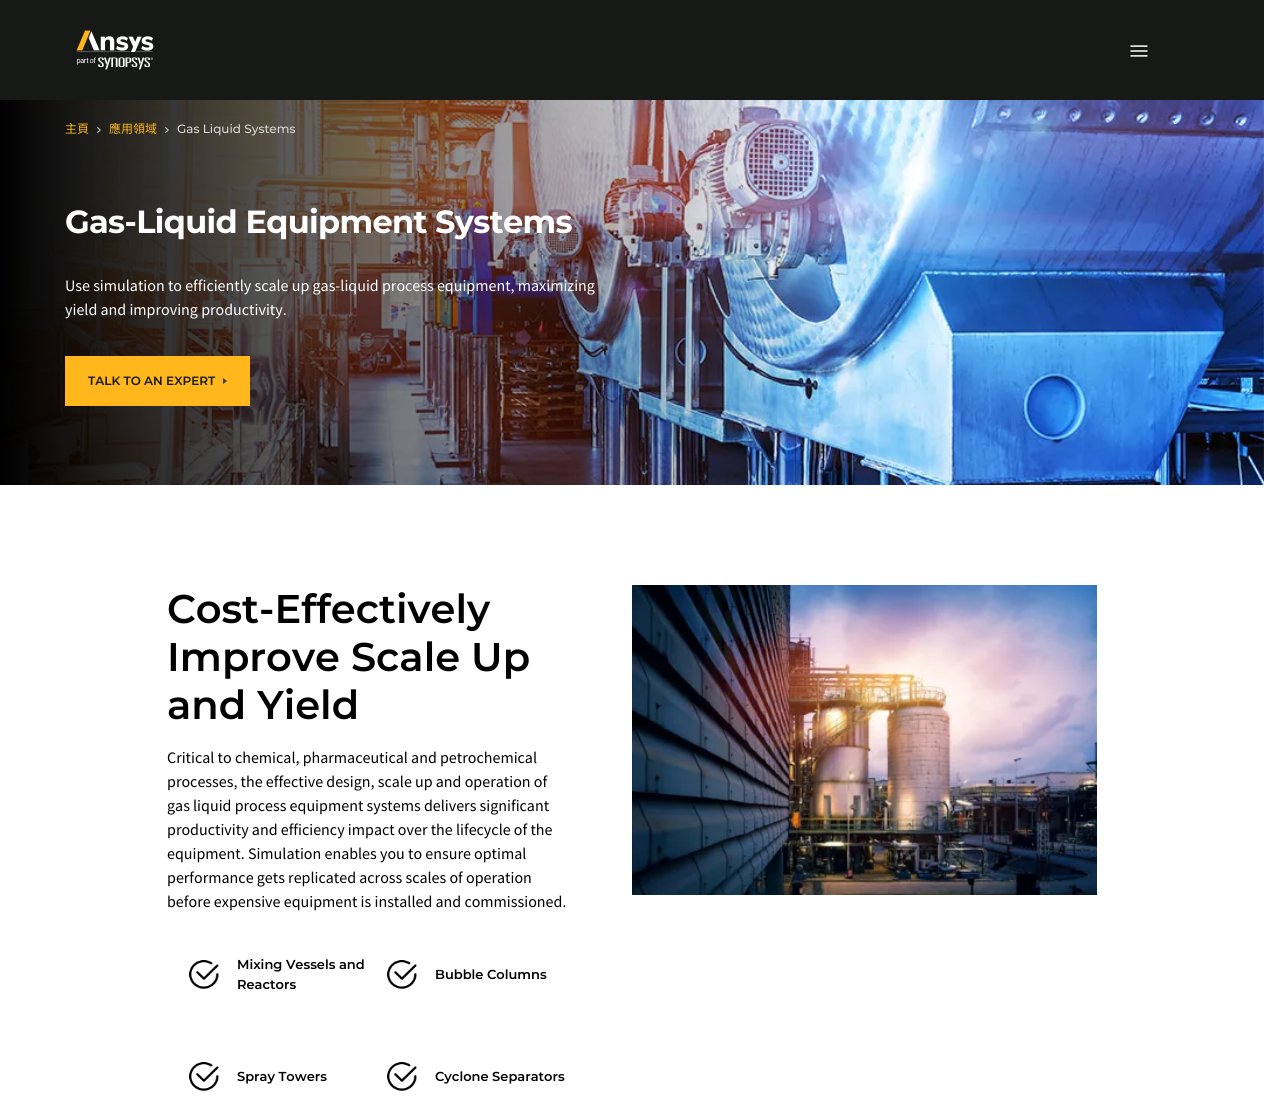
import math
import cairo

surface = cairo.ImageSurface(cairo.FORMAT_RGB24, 1264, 1097)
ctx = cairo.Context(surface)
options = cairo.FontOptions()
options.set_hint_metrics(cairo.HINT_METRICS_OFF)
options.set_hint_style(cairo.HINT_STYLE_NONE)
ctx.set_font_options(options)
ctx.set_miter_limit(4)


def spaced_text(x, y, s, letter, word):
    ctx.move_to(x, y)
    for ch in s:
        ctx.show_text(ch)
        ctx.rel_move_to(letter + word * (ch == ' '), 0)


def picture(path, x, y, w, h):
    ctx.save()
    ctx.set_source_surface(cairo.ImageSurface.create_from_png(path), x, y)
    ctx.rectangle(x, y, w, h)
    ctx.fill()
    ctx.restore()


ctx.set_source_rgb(1, 1, 1)
ctx.paint()
ctx.set_source_rgb(0.09, 0.098, 0.09)
ctx.rectangle(0, 0, 1264, 100)
ctx.fill()
picture("img1.png", 76, 30, 78, 40)
picture("img2.png", 1130, 45, 18, 12)
picture("img3.png", 0, 100, 1264, 385)
ctx.select_font_face("Noto Sans CJK TC")
ctx.set_font_size(12)
ctx.set_source_rgb(1, 0.718, 0.106)
ctx.move_to(65, 133)
ctx.show_text("主頁")
picture("img4.png", 97, 127, 4, 6)
ctx.move_to(109, 133)
ctx.show_text("應用領域")
picture("img5.png", 165, 127, 4, 6)
ctx.select_font_face("Montserrat Medium")
ctx.set_source_rgb(0.851, 0.847, 0.839)
ctx.move_to(177, 133)
ctx.show_text("Gas Liquid Systems")
ctx.select_font_face("Montserrat", cairo.FONT_SLANT_NORMAL, cairo.FONT_WEIGHT_BOLD)
ctx.set_font_size(32)
ctx.set_source_rgb(1, 1, 1)
spaced_text(65, 233, "Gas-Liquid Equipment Systems", -0.65, 0)
ctx.select_font_face("Source Sans Pro")
ctx.set_font_size(16)
ctx.move_to(65, 291)
ctx.show_text("Use simulation to efficiently scale up gas-liquid process equipment, maximizing")
ctx.move_to(65, 315)
ctx.show_text("yield and improving productivity.")
ctx.set_source_rgb(1, 0.718, 0.106)
ctx.rectangle(65, 356, 185, 50)
ctx.fill()
ctx.select_font_face("Montserrat SemiBold")
ctx.set_font_size(12)
ctx.set_source_rgb(0.082, 0.086, 0.09)
ctx.move_to(88, 385)
ctx.show_text("TALK TO AN EXPERT")
ctx.set_source_rgb(0.267, 0.212, 0.094)
ctx.new_path()
ctx.move_to(223, 384)
ctx.line_to(223, 378)
ctx.line_to(227, 381)
ctx.close_path()
ctx.fill()
ctx.set_font_size(40)
ctx.set_source_rgb(0, 0, 0)
ctx.move_to(167, 623)
ctx.show_text("Cost-Effectively")
ctx.move_to(167, 671)
ctx.show_text("Improve Scale Up")
ctx.move_to(167, 719)
ctx.show_text("and Yield")
ctx.select_font_face("Source Sans Pro")
ctx.set_font_size(16)
ctx.move_to(167, 763)
ctx.show_text("Critical to chemical, pharmaceutical and petrochemical")
ctx.move_to(167, 787)
ctx.show_text("processes, the effective design, scale up and operation of")
ctx.move_to(167, 811)
ctx.show_text("gas liquid process equipment systems delivers significant")
ctx.move_to(167, 835)
ctx.show_text("productivity and efficiency impact over the lifecycle of the")
ctx.move_to(167, 859)
ctx.show_text("equipment. Simulation enables you to ensure optimal")
ctx.move_to(167, 883)
ctx.show_text("performance gets replicated across scales of operation")
ctx.move_to(167, 907)
ctx.show_text("before expensive equipment is installed and commissioned.")
picture("img6.png", 189, 960, 30, 29)
ctx.select_font_face("Montserrat SemiBold")
ctx.set_font_size(13)
ctx.move_to(237, 969)
ctx.show_text("Mixing Vessels and")
ctx.move_to(237, 989)
ctx.show_text("Reactors")
picture("img7.png", 387, 960, 30, 29)
ctx.move_to(435, 979)
ctx.show_text("Bubble Columns")
picture("img6.png", 189, 1062, 30, 29)
ctx.move_to(237, 1081)
ctx.show_text("Spray Towers")
picture("img7.png", 387, 1062, 30, 29)
ctx.move_to(435, 1081)
ctx.show_text("Cyclone Separators")
picture("img8.png", 632, 585, 465, 310)
surface.write_to_png("page.png")
